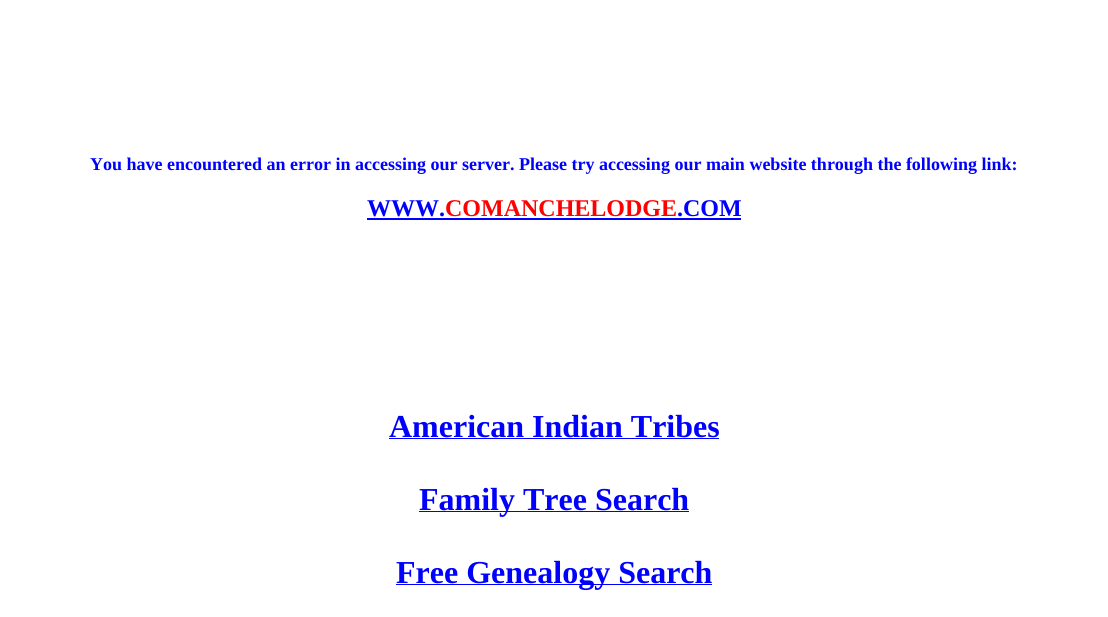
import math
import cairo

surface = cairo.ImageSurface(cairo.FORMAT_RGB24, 1108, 617)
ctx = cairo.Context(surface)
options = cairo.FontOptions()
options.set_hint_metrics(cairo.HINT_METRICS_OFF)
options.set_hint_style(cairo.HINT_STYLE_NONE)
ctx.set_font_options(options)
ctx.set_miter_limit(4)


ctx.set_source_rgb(1, 1, 1)
ctx.paint()
ctx.select_font_face("Liberation Serif", cairo.FONT_SLANT_NORMAL, cairo.FONT_WEIGHT_BOLD)
ctx.set_font_size(18)
ctx.set_source_rgb(0, 0, 1)
ctx.move_to(90, 170)
ctx.show_text("You have encountered an error in accessing our server. Please try accessing our main website through the following link:")
ctx.set_font_size(24)
ctx.move_to(367, 216)
ctx.show_text("WWW.")
ctx.rectangle(367, 218, 374, 2)
ctx.fill()
ctx.set_source_rgb(1, 0, 0)
ctx.move_to(445, 216)
ctx.show_text("COMANCHELODGE")
ctx.set_source_rgb(0, 0, 1)
ctx.move_to(677, 216)
ctx.show_text(".COM")
ctx.set_font_size(32)
ctx.move_to(389, 437)
ctx.show_text("American Indian Tribes")
ctx.rectangle(389, 438, 330, 1)
ctx.fill()
ctx.rectangle(419, 511, 270, 1)
ctx.fill()
ctx.move_to(419, 510)
ctx.show_text("Family Tree Search")
ctx.rectangle(396, 584, 316, 1)
ctx.fill()
ctx.move_to(396, 583)
ctx.show_text("Free Genealogy Search")
surface.write_to_png("page.png")
